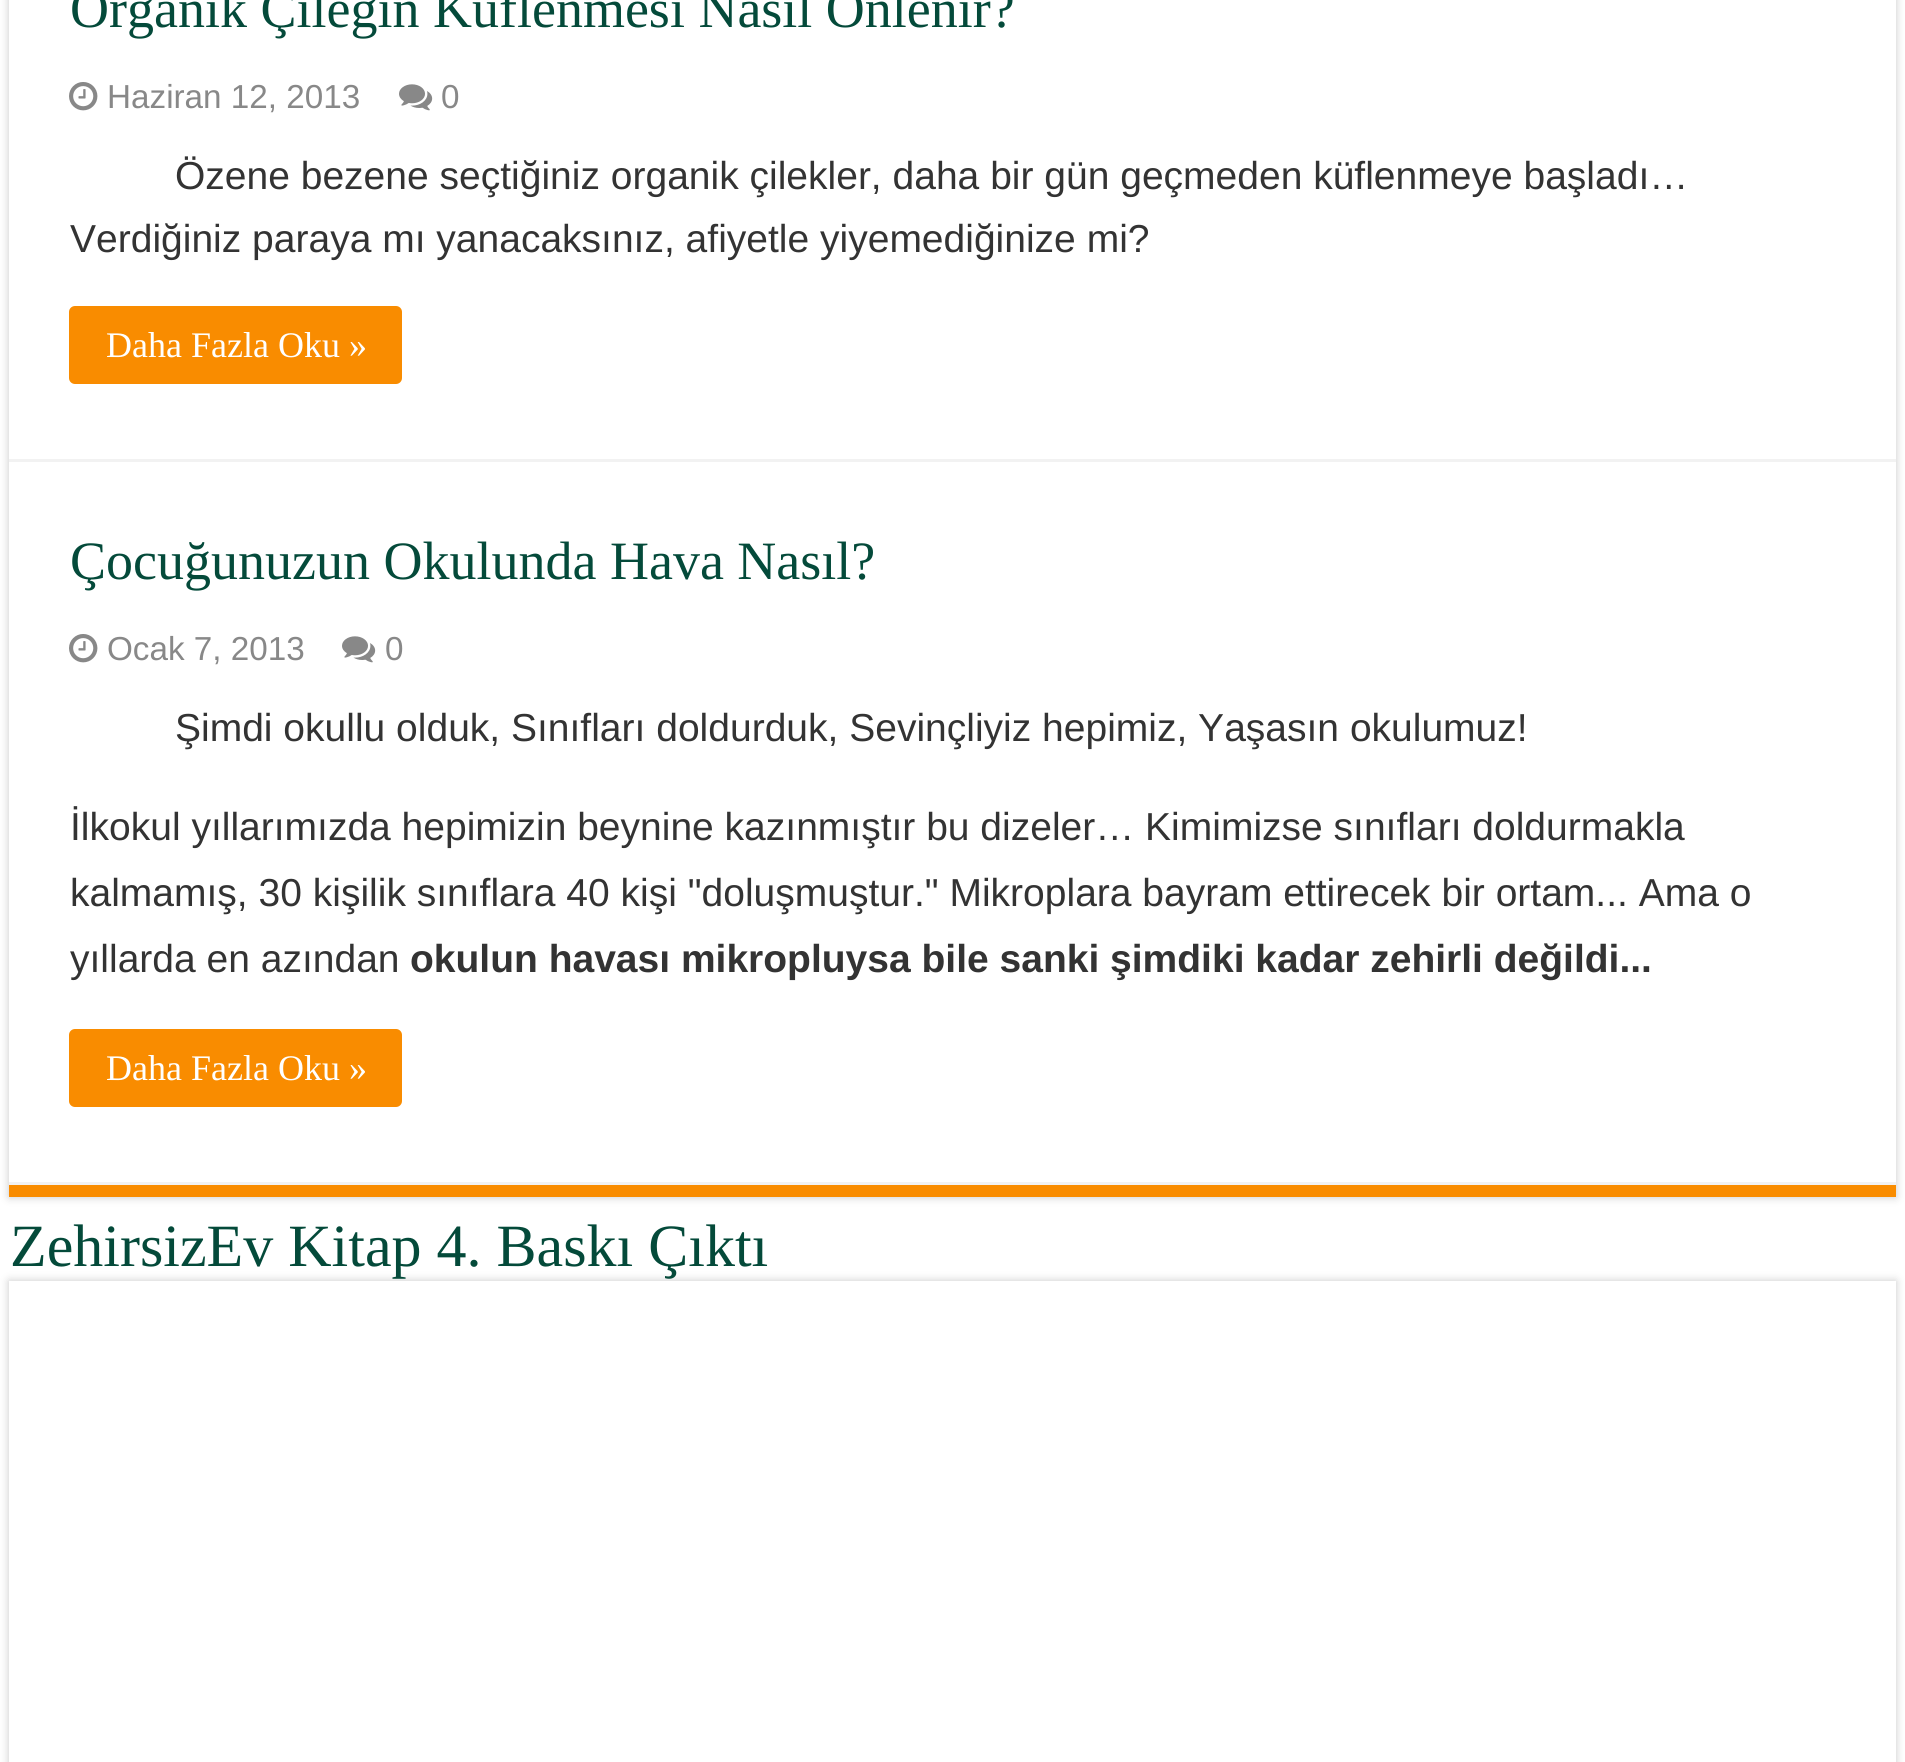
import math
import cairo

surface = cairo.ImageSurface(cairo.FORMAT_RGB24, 1905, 1762)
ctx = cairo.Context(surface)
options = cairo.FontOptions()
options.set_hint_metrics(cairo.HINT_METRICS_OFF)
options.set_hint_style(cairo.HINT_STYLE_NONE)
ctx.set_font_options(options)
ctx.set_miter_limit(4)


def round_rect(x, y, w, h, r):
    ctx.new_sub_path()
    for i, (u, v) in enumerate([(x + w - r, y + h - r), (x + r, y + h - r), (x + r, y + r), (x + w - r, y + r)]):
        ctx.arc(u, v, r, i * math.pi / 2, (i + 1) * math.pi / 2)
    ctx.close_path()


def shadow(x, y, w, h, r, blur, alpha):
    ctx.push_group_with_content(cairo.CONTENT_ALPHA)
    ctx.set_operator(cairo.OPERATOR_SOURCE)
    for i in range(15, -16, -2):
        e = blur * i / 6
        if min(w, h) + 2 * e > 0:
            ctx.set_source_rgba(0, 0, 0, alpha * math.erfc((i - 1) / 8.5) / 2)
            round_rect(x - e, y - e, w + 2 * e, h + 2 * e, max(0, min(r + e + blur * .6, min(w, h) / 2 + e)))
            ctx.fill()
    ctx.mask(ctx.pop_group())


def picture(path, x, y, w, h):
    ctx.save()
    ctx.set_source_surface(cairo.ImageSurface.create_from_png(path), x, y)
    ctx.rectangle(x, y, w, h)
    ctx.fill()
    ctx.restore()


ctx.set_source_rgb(1, 1, 1)
ctx.paint()
ctx.save()
ctx.set_fill_rule(cairo.FILL_RULE_EVEN_ODD)
ctx.new_path()
ctx.move_to(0, 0)
ctx.line_to(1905, 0)
ctx.line_to(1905, 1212)
ctx.line_to(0, 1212)
ctx.close_path()
ctx.move_to(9, -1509)
ctx.line_to(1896, -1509)
ctx.line_to(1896, 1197)
ctx.line_to(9, 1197)
ctx.close_path()
ctx.clip()
ctx.set_source_rgb(0.792, 0.792, 0.792)
shadow(9, -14, 1887, 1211, 0, 4.5, 1)
ctx.restore()
ctx.set_source_rgb(0.973, 0.549, 0)
ctx.rectangle(9, 1185, 1887, 12)
ctx.fill()
ctx.set_source_rgb(0.949, 0.949, 0.949)
ctx.rectangle(9, 459, 1887, 3)
ctx.fill()
ctx.select_font_face("Liberation Serif")
ctx.set_font_size(54)
ctx.set_source_rgb(0.016, 0.29, 0.227)
ctx.move_to(70, 27)
ctx.show_text("Organik Çileğin Küflenmesi Nasıl Önlenir?")
picture("img1.png", 69, 82, 29, 29)
ctx.select_font_face("Liberation Sans")
ctx.set_font_size(33.25)
ctx.set_source_rgb(0.533, 0.533, 0.533)
ctx.move_to(107, 108)
ctx.show_text("Haziran 12, 2013")
picture("img2.png", 399, 84, 34, 27)
ctx.move_to(441, 108)
ctx.show_text("0")
ctx.set_font_size(39)
ctx.set_source_rgb(0.2, 0.2, 0.2)
ctx.move_to(175, 189)
ctx.show_text("Özene bezene seçtiğiniz organik çilekler, daha bir gün geçmeden küflenmeye başladı…")
ctx.move_to(70, 252)
ctx.show_text("Verdiğiniz paraya mı yanacaksınız, afiyetle yiyemediğinize mi?")
ctx.set_source_rgb(0.973, 0.549, 0)
round_rect(69, 306, 333, 78, 6)
ctx.fill()
ctx.select_font_face("Liberation Serif")
ctx.set_font_size(36)
ctx.set_source_rgb(1, 1, 1)
ctx.move_to(106, 357)
ctx.show_text("Daha Fazla Oku »")
ctx.set_source_rgb(0.949, 0.949, 0.949)
ctx.rectangle(9, 1182, 1887, 3)
ctx.fill()
ctx.set_font_size(54)
ctx.set_source_rgb(0.016, 0.29, 0.227)
ctx.move_to(70, 579)
ctx.show_text("Çocuğunuzun Okulunda Hava Nasıl?")
picture("img1.png", 69, 634, 29, 29)
ctx.select_font_face("Liberation Sans")
ctx.set_font_size(33.25)
ctx.set_source_rgb(0.533, 0.533, 0.533)
ctx.move_to(107, 660)
ctx.show_text("Ocak 7, 2013")
picture("img2.png", 342, 636, 34, 27)
ctx.move_to(385, 660)
ctx.show_text("0")
ctx.set_font_size(39)
ctx.set_source_rgb(0.2, 0.2, 0.2)
ctx.move_to(175, 741)
ctx.show_text("Şimdi okullu olduk, Sınıfları doldurduk, Sevinçliyiz hepimiz, Yaşasın okulumuz!")
ctx.move_to(70, 840)
ctx.show_text("İlkokul yıllarımızda hepimizin beynine kazınmıştır bu dizeler… Kimimizse sınıfları doldurmakla")
ctx.move_to(70, 906)
ctx.show_text("kalmamış, 30 kişilik sınıflara 40 kişi \"doluşmuştur.\" Mikroplara bayram ettirecek bir ortam... Ama o")
ctx.move_to(70, 972)
ctx.show_text("yıllarda en azından")
ctx.select_font_face("Liberation Sans", cairo.FONT_SLANT_NORMAL, cairo.FONT_WEIGHT_BOLD)
ctx.move_to(410, 972)
ctx.show_text("okulun havası mikropluysa bile sanki şimdiki kadar zehirli değildi...")
ctx.set_source_rgb(0.973, 0.549, 0)
round_rect(69, 1029, 333, 78, 6)
ctx.fill()
ctx.select_font_face("Liberation Serif")
ctx.set_font_size(36)
ctx.set_source_rgb(1, 1, 1)
ctx.move_to(106, 1080)
ctx.show_text("Daha Fazla Oku »")
ctx.save()
ctx.set_fill_rule(cairo.FILL_RULE_EVEN_ODD)
ctx.new_path()
ctx.move_to(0, 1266)
ctx.line_to(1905, 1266)
ctx.line_to(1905, 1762)
ctx.line_to(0, 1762)
ctx.close_path()
ctx.move_to(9, 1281)
ctx.line_to(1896, 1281)
ctx.line_to(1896, 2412)
ctx.line_to(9, 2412)
ctx.close_path()
ctx.clip()
ctx.set_source_rgb(0.792, 0.792, 0.792)
shadow(9, 1281, 1887, 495, 0, 4.5, 1)
ctx.restore()
ctx.set_font_size(60)
ctx.set_source_rgb(0.016, 0.29, 0.227)
ctx.move_to(10, 1266)
ctx.show_text("ZehirsizEv Kitap 4. Baskı Çıktı")
surface.write_to_png("page.png")
